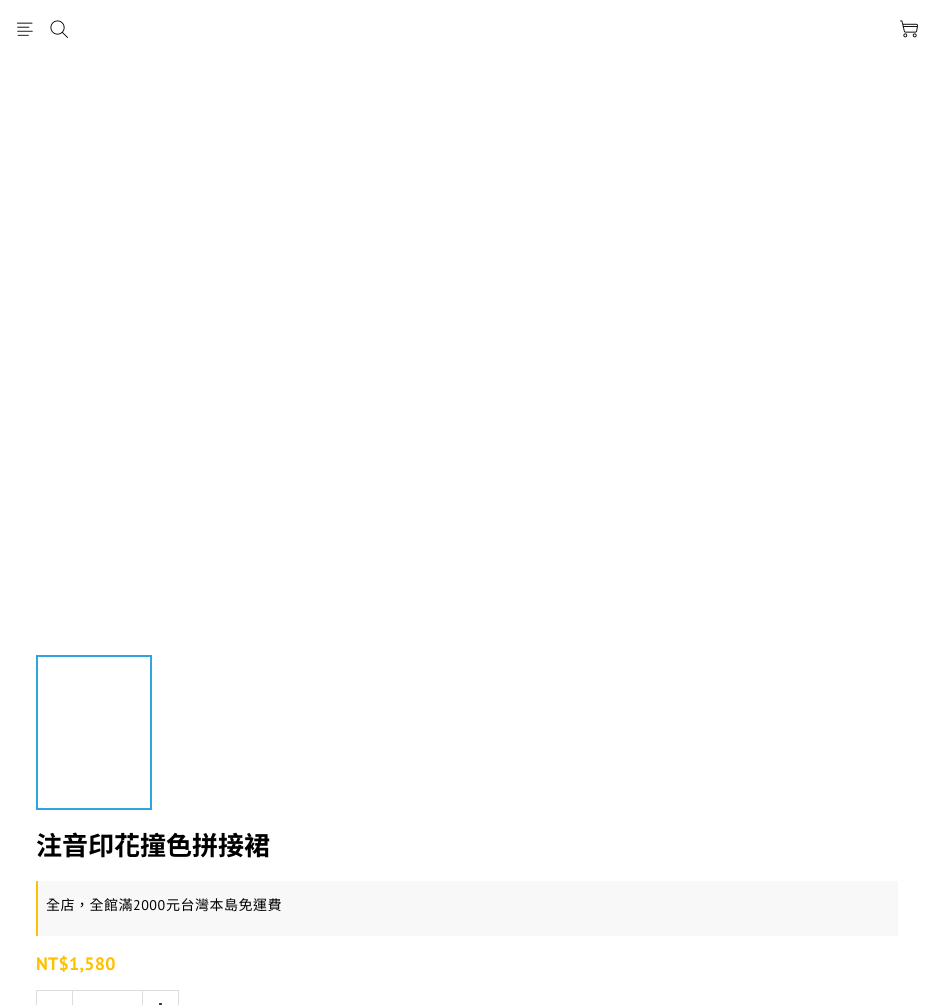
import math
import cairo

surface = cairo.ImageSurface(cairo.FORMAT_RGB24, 934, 1005)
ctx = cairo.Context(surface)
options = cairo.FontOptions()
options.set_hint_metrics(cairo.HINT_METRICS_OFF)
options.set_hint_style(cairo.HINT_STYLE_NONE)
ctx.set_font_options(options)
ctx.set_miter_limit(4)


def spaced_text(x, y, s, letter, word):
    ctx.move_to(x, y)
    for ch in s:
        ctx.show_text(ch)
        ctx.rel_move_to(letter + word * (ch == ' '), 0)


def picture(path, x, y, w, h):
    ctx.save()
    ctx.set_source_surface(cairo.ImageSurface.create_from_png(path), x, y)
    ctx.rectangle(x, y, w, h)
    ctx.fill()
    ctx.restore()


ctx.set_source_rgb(1, 1, 1)
ctx.paint()
picture("img1.png", 16, 22, 17, 14)
picture("img2.png", 50, 20, 18, 18)
picture("img3.png", 900, 20, 18, 18)
ctx.rectangle(37, 656, 114, 153)
ctx.set_source_rgb(0.188, 0.643, 0.882)
ctx.stroke()
ctx.select_font_face("Noto Sans TC", cairo.FONT_SLANT_NORMAL, cairo.FONT_WEIGHT_BOLD)
ctx.set_font_size(26)
ctx.set_source_rgb(0, 0, 0)
ctx.move_to(36, 855)
ctx.show_text("注音印花撞色拼接裙")
ctx.set_source_rgb(0.969, 0.969, 0.969)
ctx.rectangle(38, 881, 860, 55)
ctx.fill()
ctx.set_source_rgb(1, 0.753, 0)
ctx.rectangle(36, 881, 2, 55)
ctx.fill()
ctx.select_font_face("Noto Sans TC")
ctx.set_font_size(14)
ctx.set_source_rgb(0, 0, 0)
spaced_text(46, 910, "全店，全館滿", 0.5, 0)
ctx.select_font_face("PT Sans")
spaced_text(133, 910, "2000", 0.5, 0)
ctx.select_font_face("Noto Sans TC")
spaced_text(166, 910, "元台灣本島免運費", 0.5, 0)
ctx.select_font_face("PT Sans", cairo.FONT_SLANT_NORMAL, cairo.FONT_WEIGHT_BOLD)
ctx.set_font_size(18)
ctx.set_source_rgb(1, 0.753, 0)
spaced_text(36, 970, "NT$1,580", 0.25, 0)
ctx.set_source_rgb(0.867, 0.867, 0.867)
ctx.rectangle(72, 990, 71, 1)
ctx.fill()
ctx.rectangle(36.5, 990.5, 36, 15)
ctx.set_line_width(1)
ctx.stroke()
ctx.rectangle(142.5, 990.5, 36, 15)
ctx.stroke()
picture("img4.png", 159, 1003, 3, 2)
surface.write_to_png("page.png")
